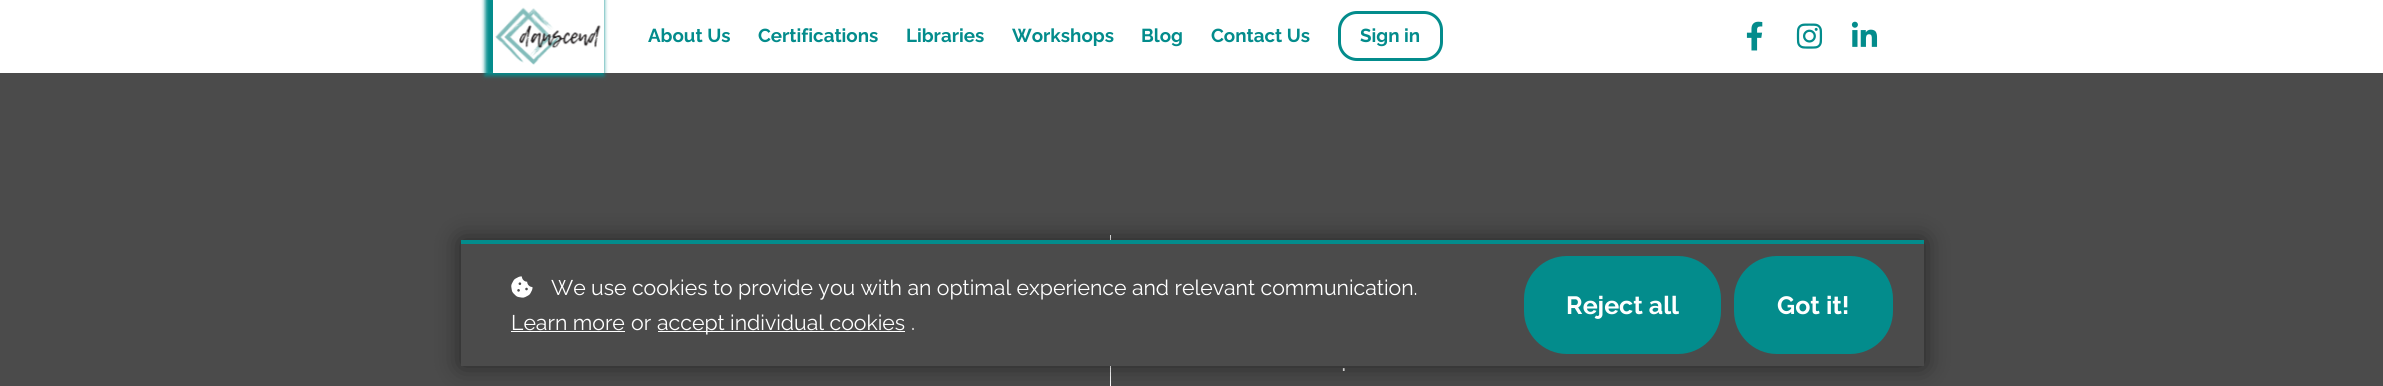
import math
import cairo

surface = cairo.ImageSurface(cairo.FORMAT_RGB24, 2383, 386)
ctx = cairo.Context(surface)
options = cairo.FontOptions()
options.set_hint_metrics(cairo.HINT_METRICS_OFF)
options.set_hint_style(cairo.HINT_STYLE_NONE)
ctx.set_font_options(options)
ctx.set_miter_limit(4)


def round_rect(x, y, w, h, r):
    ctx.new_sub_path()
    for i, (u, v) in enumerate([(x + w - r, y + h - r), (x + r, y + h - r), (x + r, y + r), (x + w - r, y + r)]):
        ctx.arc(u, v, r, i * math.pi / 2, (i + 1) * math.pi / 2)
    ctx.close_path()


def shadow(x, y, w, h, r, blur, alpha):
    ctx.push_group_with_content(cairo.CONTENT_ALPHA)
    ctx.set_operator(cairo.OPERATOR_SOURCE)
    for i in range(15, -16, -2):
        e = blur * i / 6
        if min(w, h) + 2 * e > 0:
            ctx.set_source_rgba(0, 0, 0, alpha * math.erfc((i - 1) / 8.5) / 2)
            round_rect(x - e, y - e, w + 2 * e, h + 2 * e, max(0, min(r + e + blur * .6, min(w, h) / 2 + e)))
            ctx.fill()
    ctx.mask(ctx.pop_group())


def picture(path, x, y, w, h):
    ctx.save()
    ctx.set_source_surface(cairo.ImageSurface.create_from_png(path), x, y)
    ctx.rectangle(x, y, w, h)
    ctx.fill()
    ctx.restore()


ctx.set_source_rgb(0.294, 0.294, 0.294)
ctx.paint()
ctx.set_source_rgb(1, 1, 1)
ctx.rectangle(0, 0, 2383, 73)
ctx.fill()
ctx.save()
ctx.set_fill_rule(cairo.FILL_RULE_EVEN_ODD)
ctx.new_path()
ctx.move_to(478, 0)
ctx.line_to(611, 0)
ctx.line_to(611, 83)
ctx.line_to(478, 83)
ctx.close_path()
ctx.move_to(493, 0)
ctx.line_to(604, 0)
ctx.line_to(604, 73)
ctx.line_to(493, 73)
ctx.close_path()
ctx.clip()
ctx.set_source_rgb(0.012, 0.549, 0.549)
shadow(485, -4, 119, 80, 0, 2, 1)
ctx.restore()
picture("img1.png", 495, 7, 106, 58)
ctx.select_font_face("Raleway", cairo.FONT_SLANT_NORMAL, cairo.FONT_WEIGHT_BOLD)
ctx.set_font_size(18.75)
ctx.set_source_rgb(0.012, 0.549, 0.549)
ctx.move_to(648, 42)
ctx.show_text("About Us")
ctx.move_to(758, 42)
ctx.show_text("Certifications")
ctx.move_to(906, 42)
ctx.show_text("Libraries")
ctx.move_to(1012, 42)
ctx.show_text("Workshops")
ctx.move_to(1141, 42)
ctx.show_text("Blog")
ctx.move_to(1211, 42)
ctx.show_text("Contact Us")
round_rect(1339.5, 12.5, 102, 47, 17.5)
ctx.set_line_width(3)
ctx.stroke()
ctx.move_to(1360, 42)
ctx.show_text("Sign in")
picture("img2.png", 1746, 21, 17, 30)
picture("img3.png", 1796, 23, 27, 26)
picture("img4.png", 1851, 21, 27, 26)
ctx.set_source_rgb(1, 1, 1)
ctx.rectangle(1110, 235, 1, 151)
ctx.fill()
ctx.select_font_face("Raleway")
ctx.set_font_size(29)
ctx.move_to(1341, 371)
ctx.show_text(".")
ctx.set_source_rgb(0, 0, 0)
shadow(461, 240, 1463, 126, 0, 12.5, 0.5)
ctx.set_source_rgb(0.294, 0.294, 0.294)
ctx.rectangle(461, 244, 1463, 122)
ctx.fill()
ctx.set_source_rgb(0.012, 0.549, 0.549)
ctx.rectangle(461, 240, 1463, 4)
ctx.fill()
picture("img5.png", 511, 276, 22, 22)
ctx.set_font_size(21.25)
ctx.set_source_rgb(1, 1, 1)
ctx.move_to(551, 295)
ctx.show_text("We use cookies to provide you with an optimal experience and relevant communication.")
ctx.move_to(511, 330)
ctx.show_text("Learn more")
ctx.rectangle(511, 331, 114, 1)
ctx.fill()
ctx.move_to(631, 330)
ctx.show_text("or")
ctx.rectangle(658, 331, 247, 1)
ctx.fill()
ctx.move_to(657, 330)
ctx.show_text("accept individual cookies")
ctx.move_to(911, 330)
ctx.show_text(".")
ctx.set_source_rgb(0.012, 0.549, 0.549)
round_rect(1524, 256, 197, 98, 43)
ctx.fill()
ctx.select_font_face("Raleway", cairo.FONT_SLANT_NORMAL, cairo.FONT_WEIGHT_BOLD)
ctx.set_font_size(25)
ctx.set_source_rgb(1, 1, 1)
ctx.move_to(1566, 314)
ctx.show_text("Reject all")
ctx.set_source_rgb(0.012, 0.549, 0.549)
round_rect(1734, 256, 159, 98, 43)
ctx.fill()
ctx.set_source_rgb(1, 1, 1)
ctx.move_to(1777, 314)
ctx.show_text("Got it!")
surface.write_to_png("page.png")
